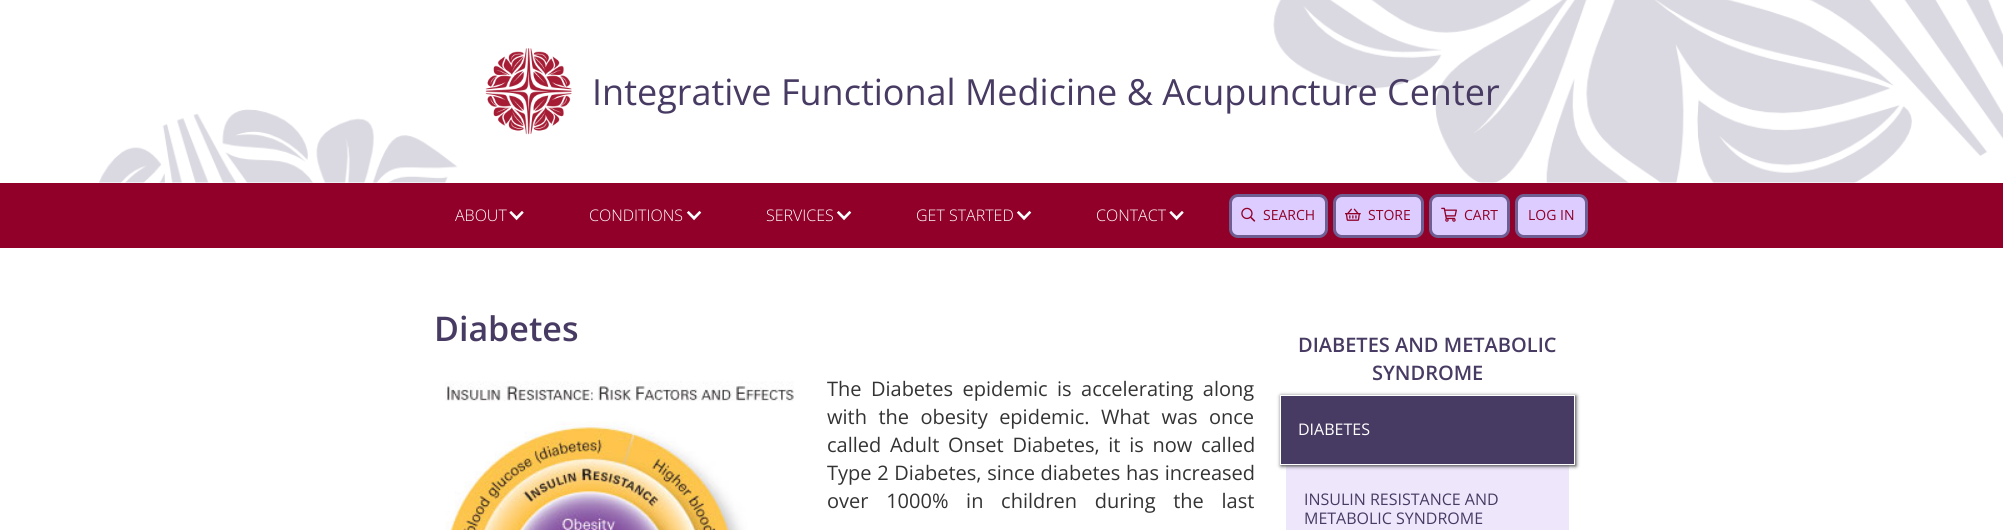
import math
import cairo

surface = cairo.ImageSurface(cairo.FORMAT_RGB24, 2003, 530)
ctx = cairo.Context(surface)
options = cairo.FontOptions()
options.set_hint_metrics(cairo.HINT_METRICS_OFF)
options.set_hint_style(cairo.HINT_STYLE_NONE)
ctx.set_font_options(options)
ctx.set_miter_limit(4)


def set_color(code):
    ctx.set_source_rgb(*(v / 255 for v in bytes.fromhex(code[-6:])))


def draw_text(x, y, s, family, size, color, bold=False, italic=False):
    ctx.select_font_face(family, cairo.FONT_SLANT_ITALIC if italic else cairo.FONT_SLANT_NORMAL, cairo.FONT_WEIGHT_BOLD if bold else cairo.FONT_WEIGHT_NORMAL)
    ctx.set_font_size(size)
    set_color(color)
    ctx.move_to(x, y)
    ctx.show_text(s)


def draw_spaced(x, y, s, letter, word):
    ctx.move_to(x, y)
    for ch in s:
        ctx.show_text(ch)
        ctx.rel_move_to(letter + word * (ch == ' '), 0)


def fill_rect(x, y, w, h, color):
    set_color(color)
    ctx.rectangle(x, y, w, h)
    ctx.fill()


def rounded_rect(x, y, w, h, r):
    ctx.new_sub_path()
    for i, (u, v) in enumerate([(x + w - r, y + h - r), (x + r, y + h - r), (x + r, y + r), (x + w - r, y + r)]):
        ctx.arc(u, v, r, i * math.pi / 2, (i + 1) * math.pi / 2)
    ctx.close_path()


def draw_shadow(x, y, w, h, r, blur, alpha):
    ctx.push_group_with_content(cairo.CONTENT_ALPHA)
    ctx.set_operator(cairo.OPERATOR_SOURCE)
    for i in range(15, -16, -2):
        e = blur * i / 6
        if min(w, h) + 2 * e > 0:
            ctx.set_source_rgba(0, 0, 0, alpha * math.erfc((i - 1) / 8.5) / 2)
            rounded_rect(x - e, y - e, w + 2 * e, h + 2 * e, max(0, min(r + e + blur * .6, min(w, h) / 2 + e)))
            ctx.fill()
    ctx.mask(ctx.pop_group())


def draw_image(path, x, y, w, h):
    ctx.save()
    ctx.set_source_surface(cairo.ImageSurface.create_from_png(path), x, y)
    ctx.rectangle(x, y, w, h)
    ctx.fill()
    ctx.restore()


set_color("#ffffff")
ctx.paint()
draw_image("assets/img1.png", 99, 0, 1904, 183)
draw_image("assets/img2.png", 485, 48, 87, 87)
draw_text(592, 105, "Integrative Functional Medicine & Acupuncture Center", "Open Sans", 36, "#483b63")
fill_rect(0, 183, 2003, 65, "#900028")
draw_text(455, 221, "ABOUT", "Open Sans Light", 16, "#ffffff")
draw_image("assets/img3.png", 509, 211, 15, 10)
draw_text(589, 221, "CONDITIONS", "Open Sans Light", 16, "#ffffff")
draw_image("assets/img4.png", 686, 211, 16, 10)
draw_text(766, 221, "SERVICES", "Open Sans Light", 16, "#ffffff")
draw_image("assets/img4.png", 836, 211, 16, 10)
draw_text(916, 221, "GET STARTED", "Open Sans Light", 16, "#ffffff")
draw_image("assets/img4.png", 1016, 211, 16, 10)
draw_text(1096, 221, "CONTACT", "Open Sans Light", 16, "#ffffff")
draw_image("assets/img3.png", 1169, 211, 15, 10)
set_color("#ddccff")
rounded_rect(1230.5, 195.5, 96, 41, 7.5)
ctx.fill_preserve()
set_color("#6f5e91")
ctx.set_line_width(3)
ctx.stroke()
draw_image("assets/img5.png", 1241, 207, 15, 15)
draw_text(1263, 220, "SEARCH", "Open Sans", 14, "#900028")
set_color("#ddccff")
rounded_rect(1334.5, 195.5, 88, 41, 7.5)
ctx.fill_preserve()
set_color("#6f5e91")
ctx.stroke()
draw_image("assets/img6.png", 1345, 208, 16, 13)
draw_text(1368, 220, "STORE", "Open Sans", 14, "#900028")
set_color("#ddccff")
rounded_rect(1430.5, 195.5, 78, 41, 7.5)
ctx.fill_preserve()
set_color("#6f5e91")
ctx.stroke()
draw_image("assets/img7.png", 1441, 207, 16, 15)
draw_text(1464, 220, "CART", "Open Sans", 14, "#900028")
set_color("#ddccff")
rounded_rect(1516.5, 195.5, 70, 41, 7.5)
ctx.fill_preserve()
set_color("#6f5e91")
ctx.stroke()
draw_text(1528, 220, "LOG IN", "Open Sans", 14, "#900028")
draw_text(434, 341, "Diabetes", "Open Sans SemiBold", 34, "#483b63")
draw_image("assets/img8.png", 445, 381, 349, 149)
ctx.select_font_face("Open Sans")
ctx.set_font_size(20)
set_color("#333333")
draw_spaced(827, 396, "The Diabetes epidemic is accelerating along", 0, 4.25)
draw_spaced(827, 424, "with the obesity epidemic. What was once", 0, 6.25)
draw_spaced(827, 452, "called Adult Onset Diabetes, it is now called", 0, 3.5)
draw_spaced(827, 480, "Type 2 Diabetes, since diabetes has increased", 0, 0.5)
draw_spaced(827, 508, "over 1000% in children during the last", 0, 12.5)
draw_text(1298, 352, "DIABETES AND METABOLIC", "Open Sans SemiBold", 20, "#483b63")
draw_text(1372, 380, "SYNDROME", "Open Sans SemiBold", 20, "#483b63")
fill_rect(1286, 465, 283, 65, "#eee7fc")
set_color("#333333")
draw_shadow(1281, 396, 295, 70, 0, 2, 1)
set_color("#483b63")
ctx.rectangle(1280.5, 395.5, 294, 69)
ctx.fill_preserve()
set_color("#ffffff")
ctx.set_line_width(1)
ctx.stroke()
draw_text(1298, 435, "DIABETES", "Open Sans", 16, "#ffffff")
draw_text(1304, 505, "INSULIN RESISTANCE AND", "Open Sans", 16, "#483b63")
draw_text(1304, 524, "METABOLIC SYNDROME", "Open Sans", 16, "#483b63")
surface.write_to_png("output.png")
